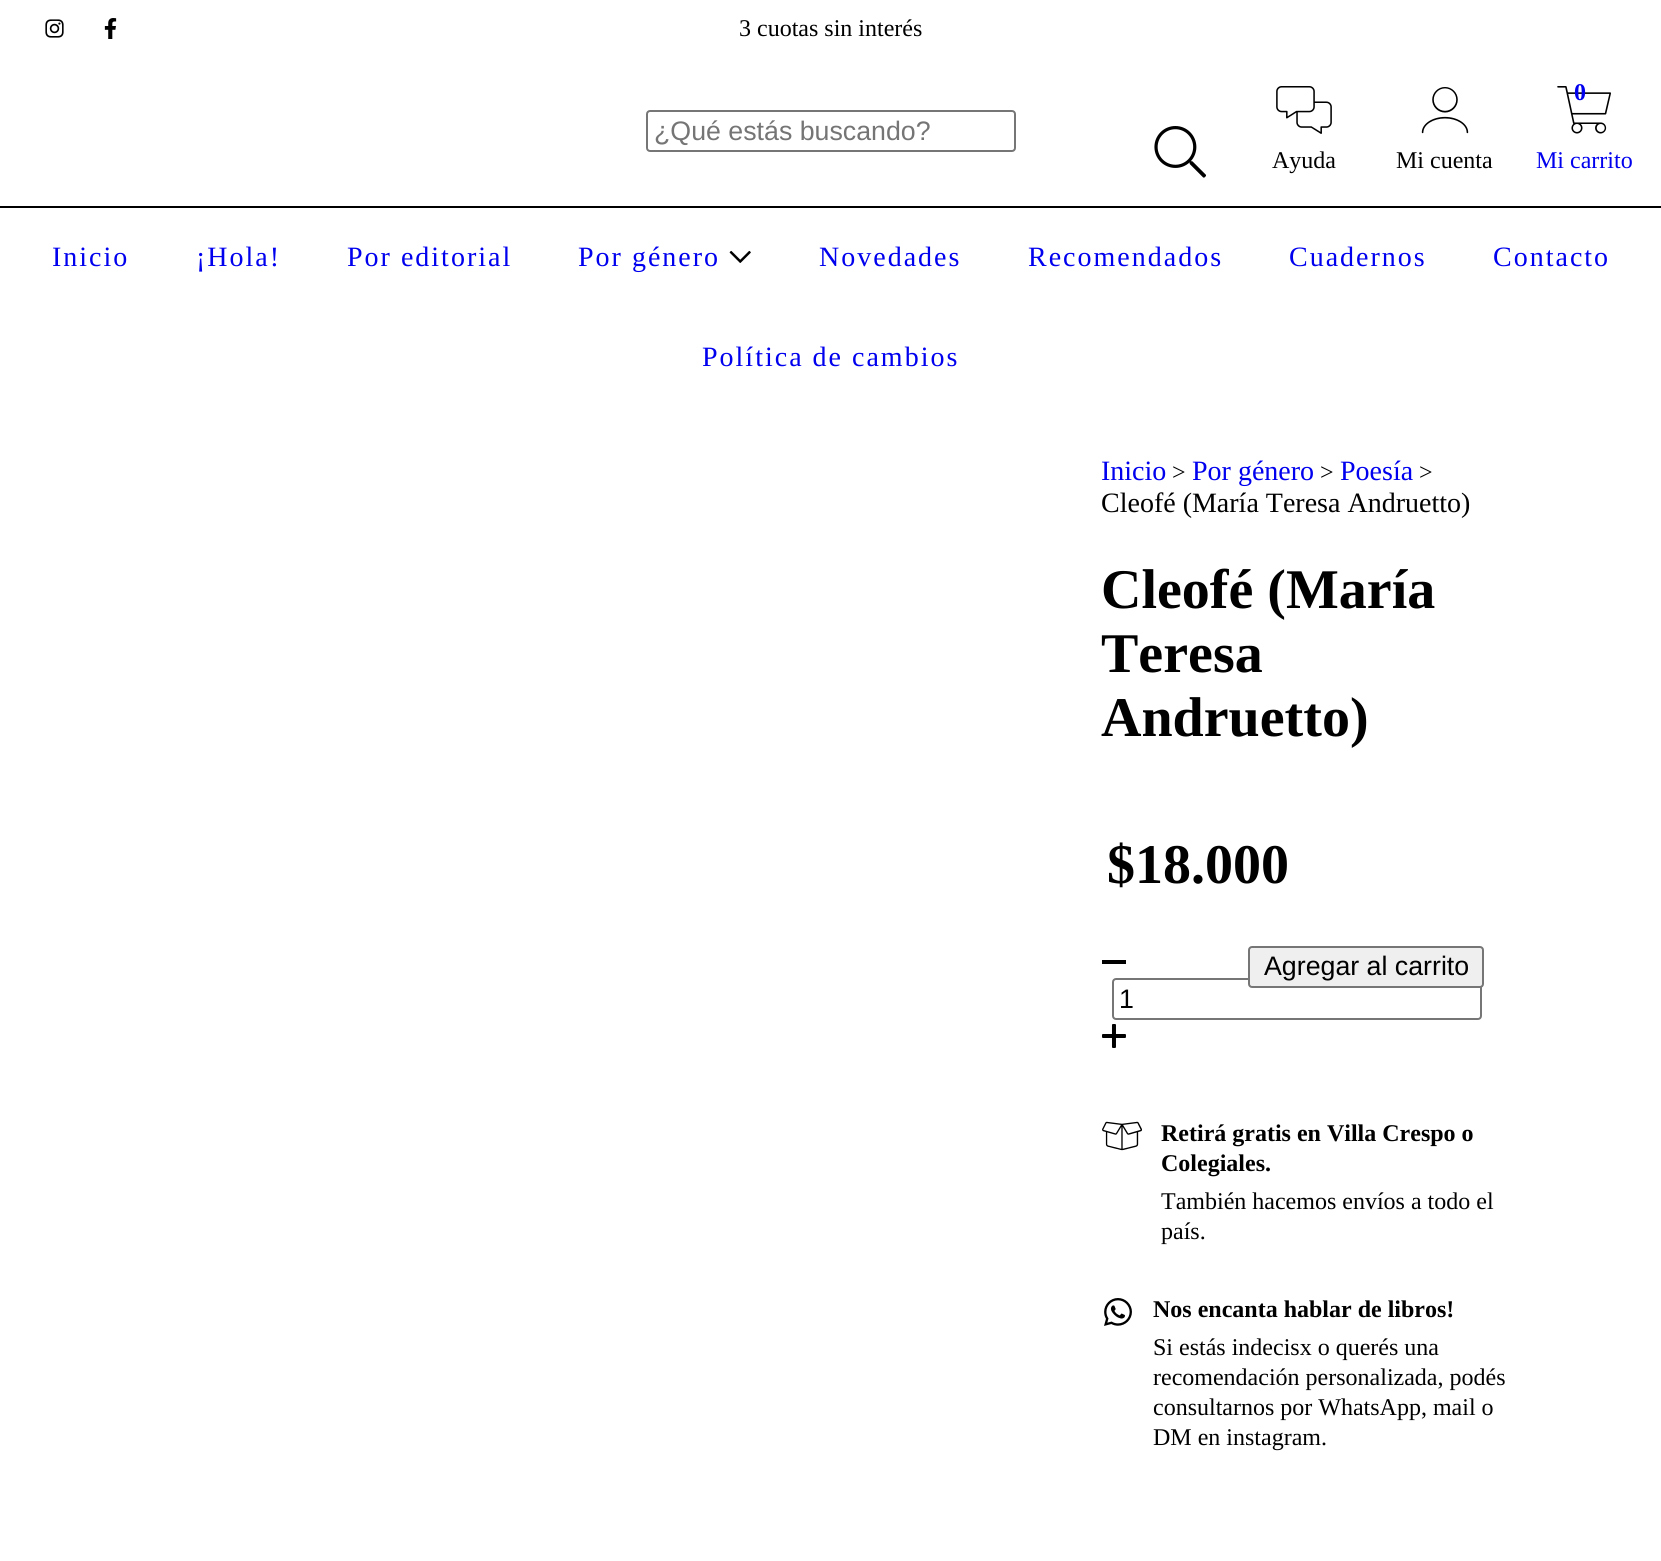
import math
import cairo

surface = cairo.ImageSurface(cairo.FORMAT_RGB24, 1661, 1561)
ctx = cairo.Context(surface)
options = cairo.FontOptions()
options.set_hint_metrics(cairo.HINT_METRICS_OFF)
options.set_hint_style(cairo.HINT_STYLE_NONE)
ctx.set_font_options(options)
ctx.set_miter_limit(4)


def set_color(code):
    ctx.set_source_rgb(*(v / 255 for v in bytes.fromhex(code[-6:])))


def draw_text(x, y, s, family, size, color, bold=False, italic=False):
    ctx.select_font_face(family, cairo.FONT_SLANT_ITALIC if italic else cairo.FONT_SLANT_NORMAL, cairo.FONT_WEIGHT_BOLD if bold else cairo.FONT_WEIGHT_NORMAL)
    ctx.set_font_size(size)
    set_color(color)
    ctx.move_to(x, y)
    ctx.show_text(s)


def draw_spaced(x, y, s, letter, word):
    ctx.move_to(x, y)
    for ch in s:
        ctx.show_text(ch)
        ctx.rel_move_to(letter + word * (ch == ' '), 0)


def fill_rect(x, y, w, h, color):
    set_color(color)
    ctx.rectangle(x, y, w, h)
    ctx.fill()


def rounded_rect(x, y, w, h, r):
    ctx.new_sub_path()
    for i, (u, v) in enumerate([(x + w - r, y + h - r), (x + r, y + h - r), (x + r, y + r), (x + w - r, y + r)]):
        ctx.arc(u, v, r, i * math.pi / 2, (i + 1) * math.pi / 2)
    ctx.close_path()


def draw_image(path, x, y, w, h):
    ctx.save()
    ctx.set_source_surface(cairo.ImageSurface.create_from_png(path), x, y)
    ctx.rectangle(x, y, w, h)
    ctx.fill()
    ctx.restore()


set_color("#ffffff")
ctx.paint()
draw_image("assets/img1.png", 45, 19, 19, 19)
draw_image("assets/img2.png", 104, 18, 13, 21)
draw_text(739, 36, "3 cuotas sin interés", "Liberation Serif", 24, "#000000")
rounded_rect(647, 111, 368, 40, 3)
set_color("#767676")
ctx.stroke()
draw_text(654, 140, "¿Qué estás buscando?", "Liberation Sans", 26.75, "#757575")
draw_image("assets/img3.png", 1154, 126, 52, 52)
draw_image("assets/img4.png", 1276, 86, 56, 48)
draw_text(1272, 168, "Ayuda", "Liberation Serif", 24, "#000000")
draw_image("assets/img5.png", 1421, 87, 48, 47)
draw_text(1396, 168, "Mi cuenta", "Liberation Serif", 24, "#000000")
draw_image("assets/img6.png", 1557, 86, 54, 48)
draw_text(1574, 100, "0", "Liberation Serif", 24, "#0000ee", bold=True)
draw_text(1536, 168, "Mi carrito", "Liberation Serif", 24, "#0000ee")
fill_rect(0, 206, 1661, 2, "#000000")
ctx.set_font_size(28)
set_color("#0000ee")
draw_spaced(52, 266, "Inicio", 2, 0)
draw_spaced(196, 266, "¡Hola!", 2, 0)
draw_spaced(347, 266, "Por editorial", 2, 0)
draw_spaced(578, 266, "Por género", 2, 0)
draw_image("assets/img7.png", 729, 250, 22, 13)
draw_spaced(819, 266, "Novedades", 2, 0)
draw_spaced(1028, 266, "Recomendados", 2, 0)
draw_spaced(1289, 266, "Cuadernos", 2, 0)
draw_spaced(1493, 266, "Contacto", 2, 0)
draw_spaced(702, 366, "Política de cambios", 2, 0)
draw_text(1101, 480, "Inicio", "Liberation Serif", 28, "#0000ee")
draw_text(1172, 480, ">", "Liberation Serif", 24, "#000000")
draw_text(1192, 480, "Por género", "Liberation Serif", 28, "#0000ee")
draw_text(1320, 480, ">", "Liberation Serif", 24, "#000000")
draw_text(1340, 480, "Poesía", "Liberation Serif", 28, "#0000ee")
draw_text(1419, 480, ">", "Liberation Serif", 24, "#000000")
draw_text(1101, 512, "Cleofé (María Teresa Andruetto)", "Liberation Serif", 28, "#000000")
draw_text(1101, 608, "Cleofé (María", "Liberation Serif", 56, "#000000", bold=True)
draw_text(1101, 672, "Teresa", "Liberation Serif", 56, "#000000", bold=True)
draw_text(1101, 736, "Andruetto)", "Liberation Serif", 56, "#000000", bold=True)
draw_text(1107, 883, "$18.000", "Liberation Serif", 56, "#000000", bold=True)
rounded_rect(1113, 979, 368, 40, 3)
set_color("#767676")
ctx.stroke()
set_color("#efefef")
rounded_rect(1249, 947, 234, 40, 3)
ctx.fill_preserve()
set_color("#767676")
ctx.stroke()
draw_text(1264, 975, "Agregar al carrito", "Liberation Sans", 26.75, "#000000")
fill_rect(1102, 960, 24, 4, "#000000")
draw_text(1119, 1008, "1", "Liberation Sans", 26.75, "#000000")
draw_image("assets/img8.png", 1102, 1024, 24, 24)
draw_image("assets/img9.png", 1102, 1121, 40, 30)
draw_text(1161, 1141, "Retirá gratis en Villa Crespo o", "Liberation Serif", 24, "#000000", bold=True)
draw_text(1161, 1171, "Colegiales.", "Liberation Serif", 24, "#000000", bold=True)
draw_text(1161, 1209, "También hacemos envíos a todo el", "Liberation Serif", 24, "#000000")
draw_text(1161, 1239, "país.", "Liberation Serif", 24, "#000000")
draw_image("assets/img10.png", 1104, 1298, 28, 28)
draw_text(1153, 1317, "Nos encanta hablar de libros!", "Liberation Serif", 24, "#000000", bold=True)
draw_text(1153, 1355, "Si estás indecisx o querés una", "Liberation Serif", 24, "#000000")
draw_text(1153, 1385, "recomendación personalizada, podés", "Liberation Serif", 24, "#000000")
draw_text(1153, 1415, "consultarnos por WhatsApp, mail o", "Liberation Serif", 24, "#000000")
draw_text(1153, 1445, "DM en instagram.", "Liberation Serif", 24, "#000000")
surface.write_to_png("output.png")
